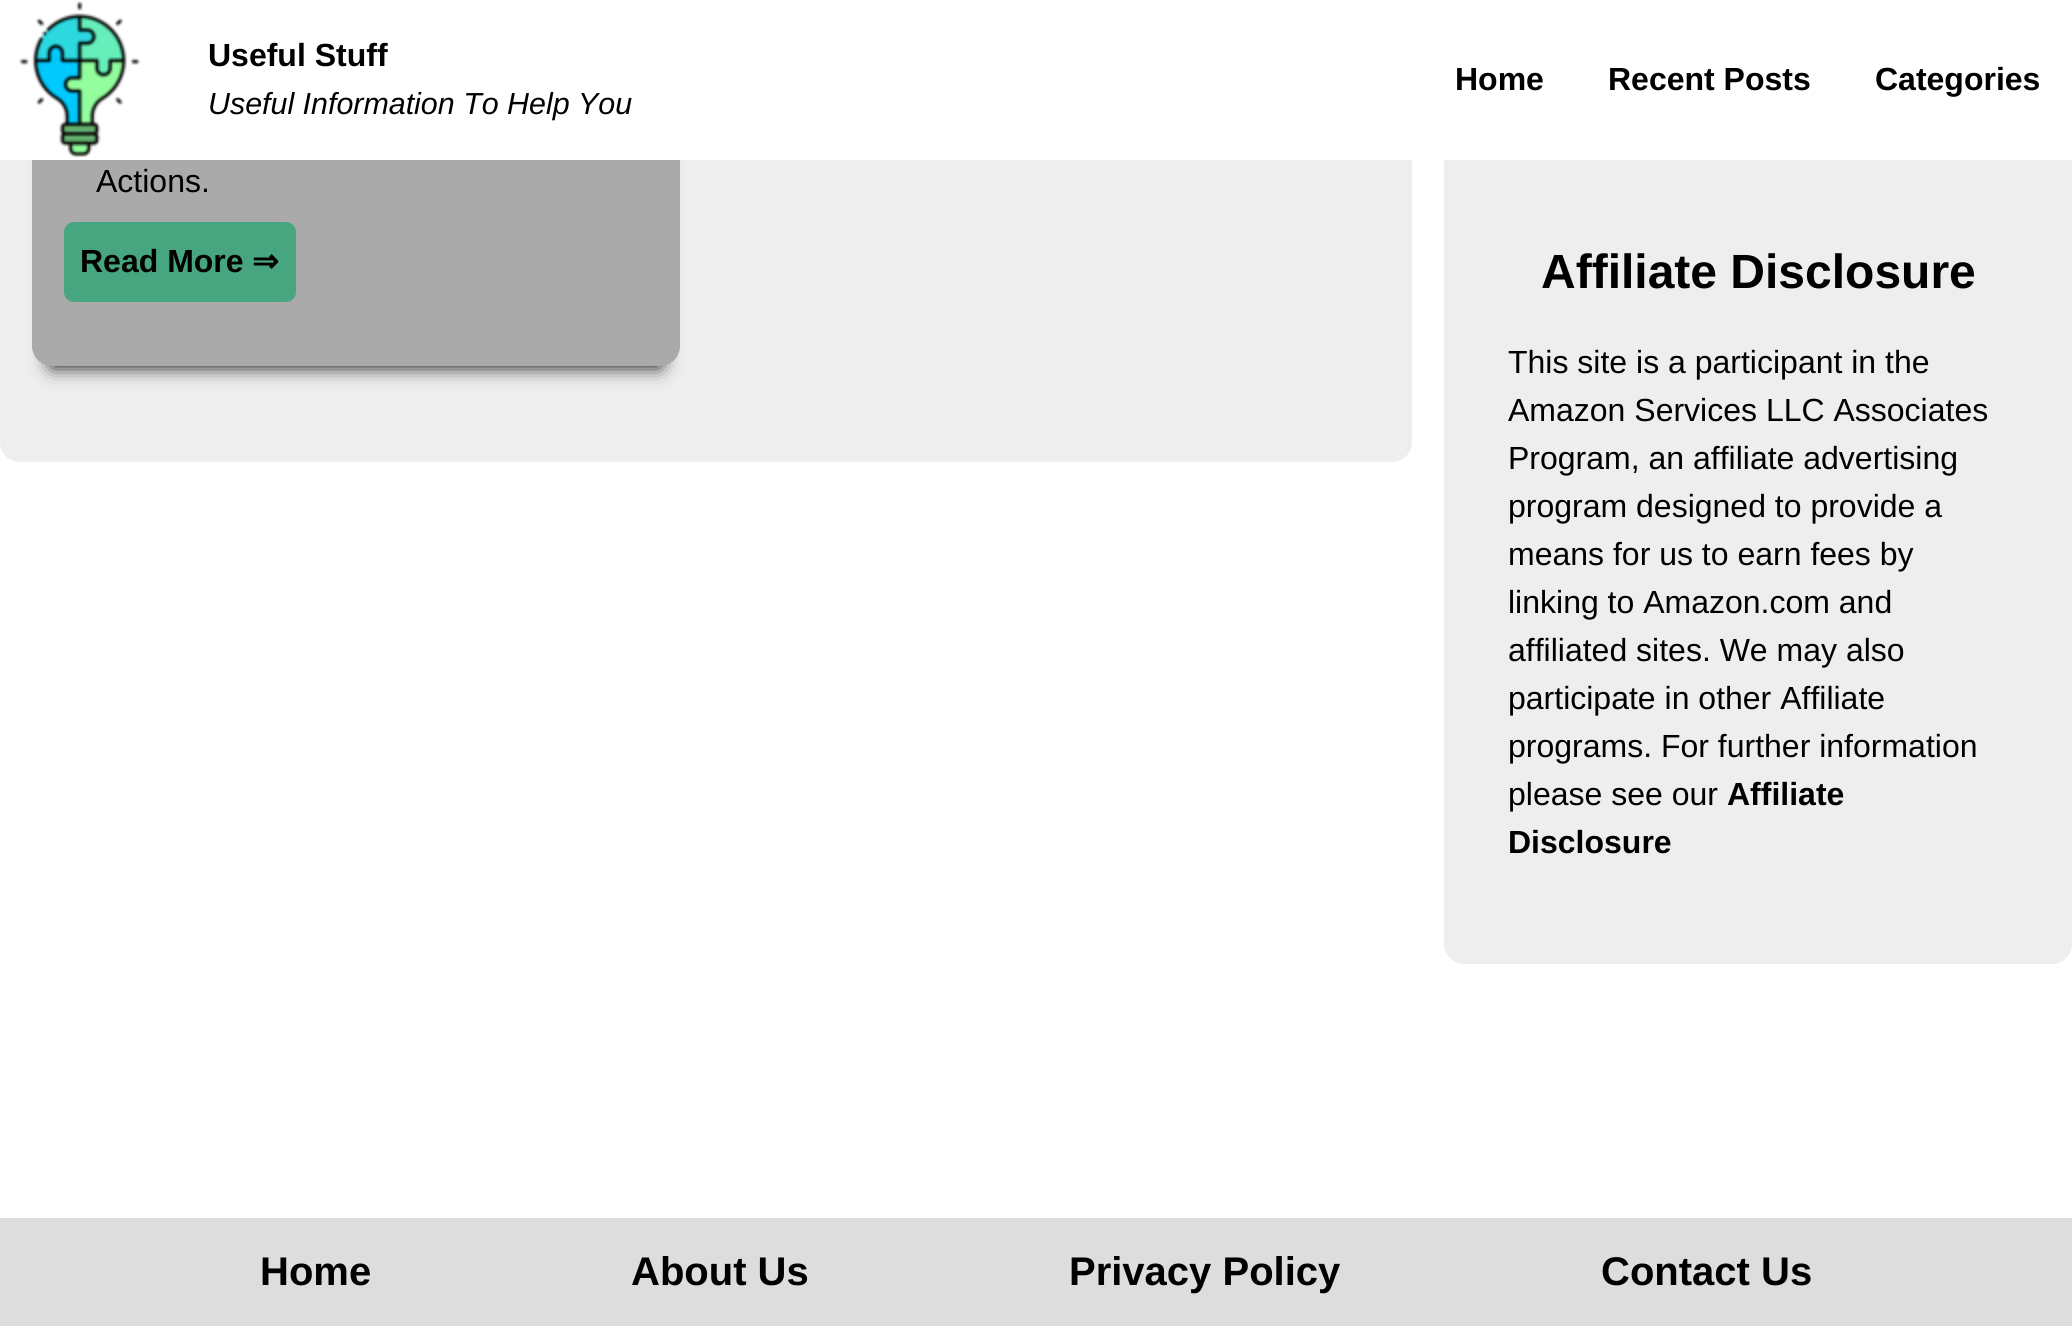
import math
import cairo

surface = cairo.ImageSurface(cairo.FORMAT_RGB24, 2072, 1326)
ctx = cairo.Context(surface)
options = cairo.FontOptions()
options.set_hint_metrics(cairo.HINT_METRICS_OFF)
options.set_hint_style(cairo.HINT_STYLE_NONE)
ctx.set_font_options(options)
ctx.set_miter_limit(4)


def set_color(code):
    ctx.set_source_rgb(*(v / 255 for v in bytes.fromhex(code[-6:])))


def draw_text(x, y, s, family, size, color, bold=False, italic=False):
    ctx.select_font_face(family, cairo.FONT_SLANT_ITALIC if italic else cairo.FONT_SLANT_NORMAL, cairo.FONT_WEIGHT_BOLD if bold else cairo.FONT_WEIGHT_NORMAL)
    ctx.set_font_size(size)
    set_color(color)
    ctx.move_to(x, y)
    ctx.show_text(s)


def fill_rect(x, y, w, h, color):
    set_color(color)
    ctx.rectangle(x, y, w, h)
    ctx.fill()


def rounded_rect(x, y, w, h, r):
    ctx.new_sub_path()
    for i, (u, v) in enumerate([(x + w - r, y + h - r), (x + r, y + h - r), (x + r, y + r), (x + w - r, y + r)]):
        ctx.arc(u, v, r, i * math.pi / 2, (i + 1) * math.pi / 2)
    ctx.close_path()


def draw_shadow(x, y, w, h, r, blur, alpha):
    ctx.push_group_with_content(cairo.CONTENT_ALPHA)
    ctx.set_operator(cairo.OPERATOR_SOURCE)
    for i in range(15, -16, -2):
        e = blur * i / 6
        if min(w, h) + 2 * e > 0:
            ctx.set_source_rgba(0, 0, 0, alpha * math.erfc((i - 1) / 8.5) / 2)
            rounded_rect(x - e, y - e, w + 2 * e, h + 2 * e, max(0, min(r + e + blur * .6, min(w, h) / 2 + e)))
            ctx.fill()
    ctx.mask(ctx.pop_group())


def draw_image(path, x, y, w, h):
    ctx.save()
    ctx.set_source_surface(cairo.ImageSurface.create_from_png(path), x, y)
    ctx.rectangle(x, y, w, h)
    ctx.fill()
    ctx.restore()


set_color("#ffffff")
ctx.paint()
set_color("#eeeeee")
rounded_rect(0, -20, 1412, 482, 20)
ctx.fill()
set_color("#000000")
draw_shadow(52, -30, 608, 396, 0, 10, 1)
set_color("#aaaaaa")
rounded_rect(32, -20, 648, 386, 20)
ctx.fill()
set_color("#eeeeee")
rounded_rect(1444, -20, 628, 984, 20)
ctx.fill()
fill_rect(0, 0, 2072, 160, "#ffffff")
draw_image("assets/img1.png", 19, 1, 122, 157)
draw_text(208, 66, "Useful Stuff", "Liberation Sans", 32, "#000000", bold=True)
draw_text(208, 114, "Useful Information To Help You", "Liberation Sans", 30.4, "#000000", italic=True)
draw_text(1455, 90, "Home", "Liberation Sans", 32, "#000000", bold=True)
draw_text(1608, 90, "Recent Posts", "Liberation Sans", 32, "#000000", bold=True)
draw_text(1875, 90, "Categories", "Liberation Sans", 32, "#000000", bold=True)
draw_text(96, 192, "Actions.", "Liberation Sans", 32, "#000000")
set_color("#47a57f")
rounded_rect(64, 222, 232, 80, 10)
ctx.fill()
draw_text(80, 272, "Read More", "Liberation Sans", 32, "#000000", bold=True)
draw_text(252, 272, "⇒", "DejaVu Sans", 32, "#000000", bold=True)
draw_text(1541, 288, "Affiliate Disclosure", "Liberation Sans", 48, "#000000", bold=True)
draw_text(1508, 373, "This site is a participant in the", "Liberation Sans", 32, "#000000")
draw_text(1508, 421, "Amazon Services LLC Associates", "Liberation Sans", 32, "#000000")
draw_text(1508, 469, "Program, an affiliate advertising", "Liberation Sans", 32, "#000000")
draw_text(1508, 517, "program designed to provide a", "Liberation Sans", 32, "#000000")
draw_text(1508, 565, "means for us to earn fees by", "Liberation Sans", 32, "#000000")
draw_text(1508, 613, "linking to Amazon.com and", "Liberation Sans", 32, "#000000")
draw_text(1508, 661, "affiliated sites. We may also", "Liberation Sans", 32, "#000000")
draw_text(1508, 709, "participate in other Affiliate", "Liberation Sans", 32, "#000000")
draw_text(1508, 757, "programs. For further information", "Liberation Sans", 32, "#000000")
draw_text(1508, 805, "please see our", "Liberation Sans", 32, "#000000")
draw_text(1727, 805, "Affiliate", "Liberation Sans", 32, "#000000", bold=True)
draw_text(1508, 853, "Disclosure", "Liberation Sans", 32, "#000000", bold=True)
fill_rect(0, 1218, 2072, 108, "#dddddd")
draw_text(260, 1285, "Home", "Liberation Sans", 40, "#000000", bold=True)
draw_text(631, 1285, "About Us", "Liberation Sans", 40, "#000000", bold=True)
draw_text(1069, 1285, "Privacy Policy", "Liberation Sans", 40, "#000000", bold=True)
draw_text(1601, 1285, "Contact Us", "Liberation Sans", 40, "#000000", bold=True)
surface.write_to_png("output.png")
